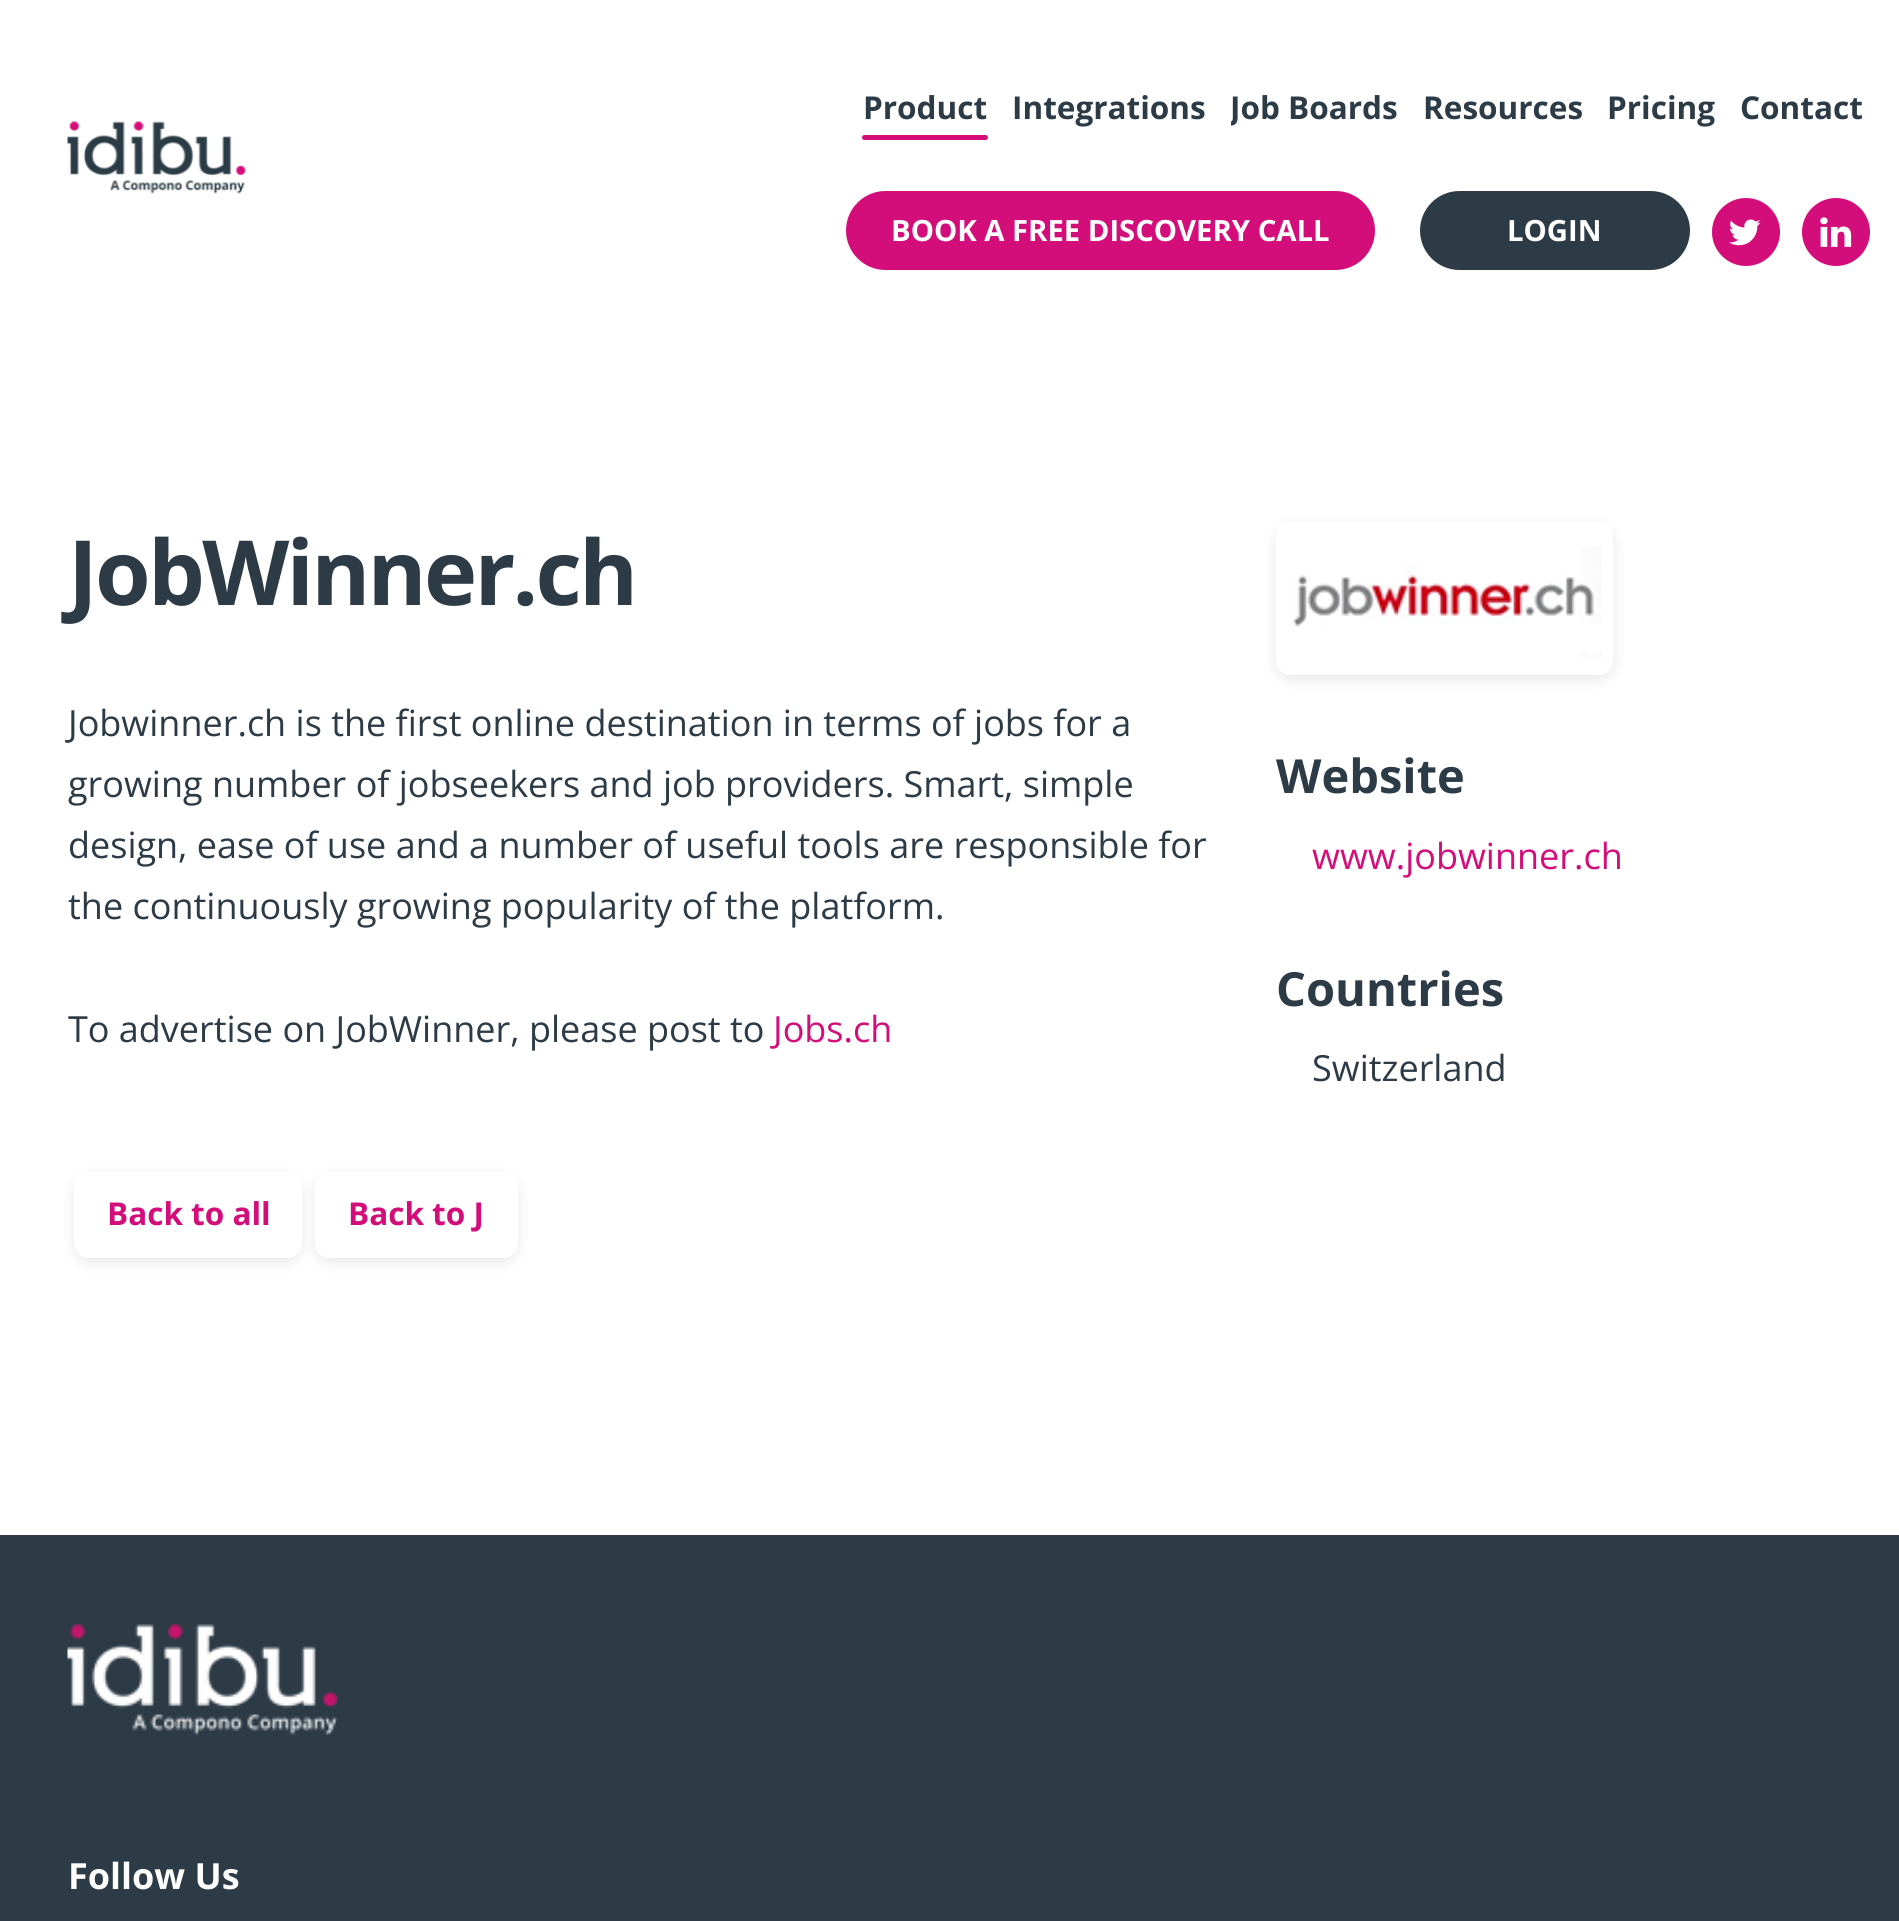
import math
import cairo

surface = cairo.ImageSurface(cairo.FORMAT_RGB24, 1899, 1921)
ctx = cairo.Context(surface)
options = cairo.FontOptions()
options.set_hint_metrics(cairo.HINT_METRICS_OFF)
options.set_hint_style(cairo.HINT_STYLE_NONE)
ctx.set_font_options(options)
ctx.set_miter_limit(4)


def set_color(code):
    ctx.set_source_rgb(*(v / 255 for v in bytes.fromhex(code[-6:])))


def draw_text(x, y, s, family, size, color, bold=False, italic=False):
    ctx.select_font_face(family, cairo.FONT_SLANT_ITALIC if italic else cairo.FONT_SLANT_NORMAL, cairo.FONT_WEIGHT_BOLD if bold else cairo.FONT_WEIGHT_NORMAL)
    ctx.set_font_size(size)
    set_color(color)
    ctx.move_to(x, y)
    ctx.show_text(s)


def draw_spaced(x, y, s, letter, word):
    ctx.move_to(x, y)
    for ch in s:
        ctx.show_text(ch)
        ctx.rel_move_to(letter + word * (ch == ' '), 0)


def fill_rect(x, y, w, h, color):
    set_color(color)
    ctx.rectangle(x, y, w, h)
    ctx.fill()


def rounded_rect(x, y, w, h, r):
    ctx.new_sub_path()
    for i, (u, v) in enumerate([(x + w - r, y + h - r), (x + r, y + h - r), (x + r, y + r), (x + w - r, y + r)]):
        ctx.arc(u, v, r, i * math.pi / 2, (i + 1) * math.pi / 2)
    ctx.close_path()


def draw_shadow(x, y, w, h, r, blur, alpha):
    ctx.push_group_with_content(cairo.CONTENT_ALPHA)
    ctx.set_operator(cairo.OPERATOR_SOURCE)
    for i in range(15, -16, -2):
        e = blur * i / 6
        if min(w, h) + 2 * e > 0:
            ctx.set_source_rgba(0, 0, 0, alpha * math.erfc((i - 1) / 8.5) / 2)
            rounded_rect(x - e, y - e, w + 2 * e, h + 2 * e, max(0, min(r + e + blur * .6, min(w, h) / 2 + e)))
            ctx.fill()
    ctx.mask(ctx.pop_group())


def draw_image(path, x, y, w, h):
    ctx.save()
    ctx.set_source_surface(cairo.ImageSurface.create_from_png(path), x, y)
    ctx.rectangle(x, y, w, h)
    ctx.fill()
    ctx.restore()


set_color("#ffffff")
ctx.paint()
draw_image("assets/img1.png", 67, 121, 179, 73)
draw_text(863, 119, "Product", "Open Sans", 31.5, "#2c3b46", bold=True)
set_color("#d30e7a")
rounded_rect(862, 135, 126, 5, 2.5)
ctx.fill()
draw_text(1012, 119, "Integrations", "Open Sans", 31.5, "#2c3b46", bold=True)
ctx.save()
ctx.rectangle(1231, 45, 166, 128)
ctx.clip()
draw_text(1230, 119, "Job Boards", "Open Sans", 31.5, "#2c3b46", bold=True)
ctx.restore()
draw_text(1423, 119, "Resources", "Open Sans", 31.5, "#2c3b46", bold=True)
draw_text(1607, 119, "Pricing", "Open Sans", 31.5, "#2c3b46", bold=True)
draw_text(1740, 119, "Contact", "Open Sans", 31.5, "#2c3b46", bold=True)
set_color("#d30e7a")
rounded_rect(846, 191, 529, 79, 39.5)
ctx.fill()
draw_text(891, 241, "BOOK A FREE DISCOVERY CALL", "Open Sans", 29.25, "#ffffff", bold=True)
set_color("#2c3b46")
rounded_rect(1422.5, 193.5, 265, 74, 37)
ctx.fill_preserve()
ctx.set_line_width(5)
ctx.stroke()
draw_text(1507, 241, "LOGIN", "Open Sans", 29.25, "#ffffff", bold=True)
set_color("#d30e7a")
ctx.new_path()
ctx.arc(1746, 232, 34, 0, 2 * math.pi)
ctx.fill()
draw_image("assets/img2.png", 1729, 219, 32, 27)
ctx.arc(1836, 232, 34, 0, 2 * math.pi)
ctx.fill()
draw_image("assets/img3.png", 1820, 217, 32, 30)
ctx.set_font_size(90)
set_color("#2c3b46")
draw_spaced(68, 605, "JobWinner.ch", -2.75, 0)
draw_text(68, 736, "Jobwinner.ch is the first online destination in terms of jobs for a", "Open Sans", 36, "#2c3b46")
draw_text(68, 797, "growing number of jobseekers and job providers. Smart, simple", "Open Sans", 36, "#2c3b46")
draw_text(68, 858, "design, ease of use and a number of useful tools are responsible for", "Open Sans", 36, "#2c3b46")
draw_text(68, 919, "the continuously growing popularity of the platform.", "Open Sans", 36, "#2c3b46")
draw_text(68, 1042, "To advertise on JobWinner, please post to", "Open Sans", 36, "#2c3b46")
draw_text(773, 1042, "Jobs.ch", "Open Sans", 36, "#d30e7a")
set_color("#000000")
draw_shadow(1280, 531, 329, 144, 9, 9, 0.15)
set_color("#ffffff")
rounded_rect(1276, 522, 337, 153, 14)
ctx.fill()
draw_image("assets/img4.png", 1293, 546, 309, 113)
draw_text(1276, 793, "Website", "Open Sans", 47, "#2c3b46", bold=True)
draw_text(1312, 869, "www.jobwinner.ch", "Open Sans", 36, "#d30e7a")
draw_text(1276, 1006, "Countries", "Open Sans", 47, "#2c3b46", bold=True)
draw_text(1312, 1081, "Switzerland", "Open Sans", 36, "#2c3b46")
set_color("#000000")
draw_shadow(79, 1181, 218, 77, 9, 9, 0.15)
set_color("#ffffff")
rounded_rect(74, 1172, 228, 86, 14)
ctx.fill()
draw_text(107, 1225, "Back to all", "Open Sans", 31.5, "#d30e7a", bold=True)
set_color("#000000")
draw_shadow(320, 1181, 193, 77, 9, 9, 0.15)
set_color("#ffffff")
rounded_rect(315, 1172, 203, 86, 14)
ctx.fill()
draw_text(348, 1225, "Back to J", "Open Sans", 31.5, "#d30e7a", bold=True)
fill_rect(0, 1535, 1899, 386, "#2c3b46")
draw_image("assets/img5.png", 67, 1624, 271, 111)
draw_text(68, 1889, "Follow Us", "Open Sans", 36, "#ffffff", bold=True)
surface.write_to_png("output.png")
